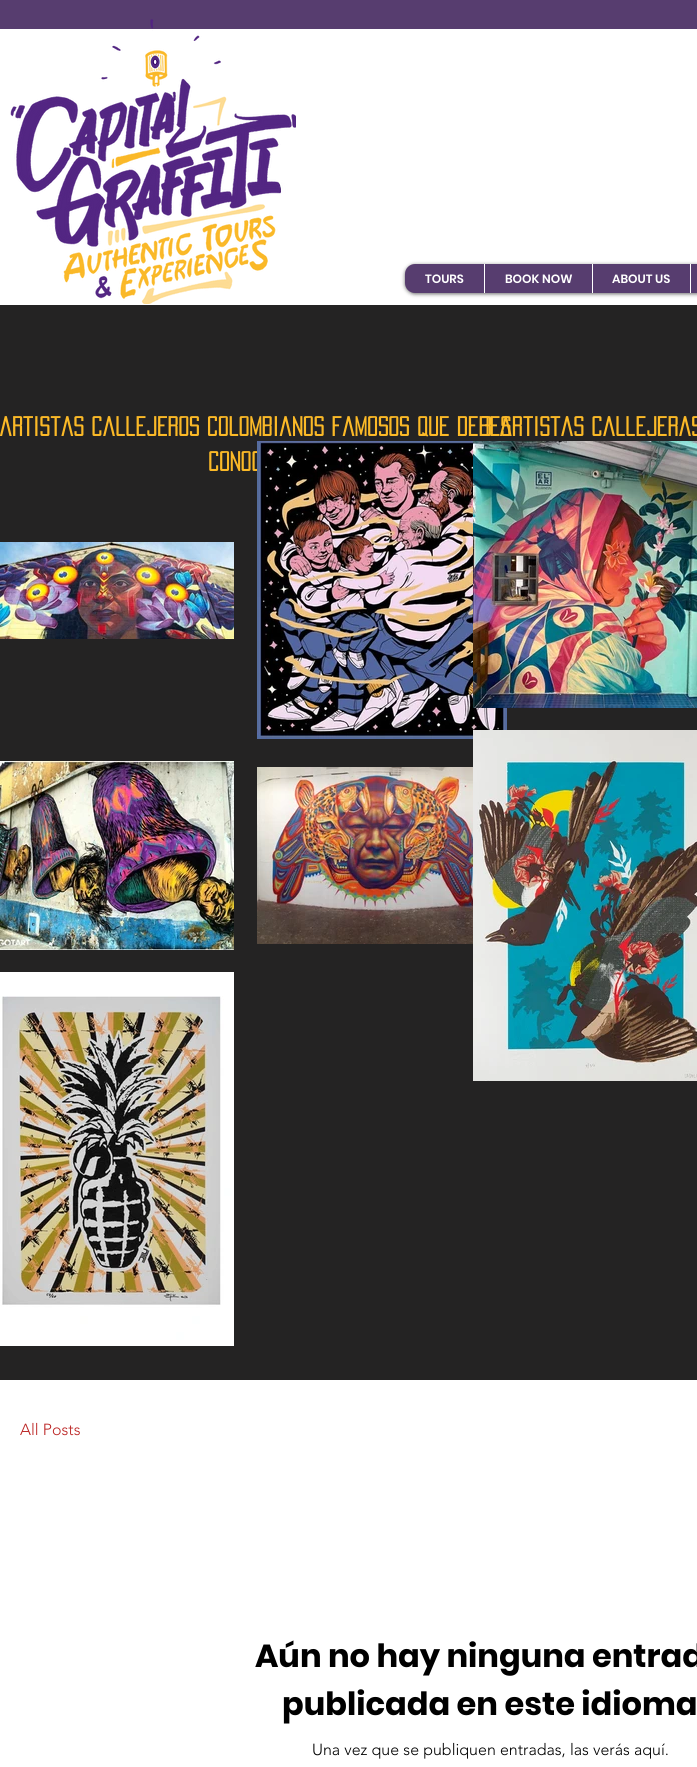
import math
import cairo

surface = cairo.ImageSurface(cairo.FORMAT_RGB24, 697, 1767)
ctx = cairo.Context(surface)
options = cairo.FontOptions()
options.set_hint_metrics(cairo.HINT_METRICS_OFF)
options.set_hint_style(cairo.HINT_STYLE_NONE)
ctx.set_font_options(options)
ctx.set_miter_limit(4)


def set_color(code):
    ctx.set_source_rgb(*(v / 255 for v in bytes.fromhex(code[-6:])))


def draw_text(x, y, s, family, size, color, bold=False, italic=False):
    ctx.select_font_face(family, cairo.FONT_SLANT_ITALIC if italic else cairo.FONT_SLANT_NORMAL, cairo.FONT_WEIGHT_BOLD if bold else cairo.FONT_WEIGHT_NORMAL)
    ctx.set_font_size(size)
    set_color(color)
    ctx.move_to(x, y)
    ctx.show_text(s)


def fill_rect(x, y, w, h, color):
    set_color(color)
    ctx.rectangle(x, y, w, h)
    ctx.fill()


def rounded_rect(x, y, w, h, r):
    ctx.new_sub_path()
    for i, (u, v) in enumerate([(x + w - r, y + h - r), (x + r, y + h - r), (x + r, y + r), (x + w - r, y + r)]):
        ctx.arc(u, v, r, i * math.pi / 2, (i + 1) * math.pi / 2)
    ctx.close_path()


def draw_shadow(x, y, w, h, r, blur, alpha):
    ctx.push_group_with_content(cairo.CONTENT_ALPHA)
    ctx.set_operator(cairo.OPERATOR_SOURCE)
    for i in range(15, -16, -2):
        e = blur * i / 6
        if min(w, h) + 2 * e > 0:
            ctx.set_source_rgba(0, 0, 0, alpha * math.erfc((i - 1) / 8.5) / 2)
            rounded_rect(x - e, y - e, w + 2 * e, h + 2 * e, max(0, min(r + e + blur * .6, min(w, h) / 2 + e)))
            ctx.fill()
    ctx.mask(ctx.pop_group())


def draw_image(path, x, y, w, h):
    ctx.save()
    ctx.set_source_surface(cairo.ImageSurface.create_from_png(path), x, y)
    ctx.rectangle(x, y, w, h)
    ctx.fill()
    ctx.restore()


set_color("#ffffff")
ctx.paint()
fill_rect(0, 0, 697, 29, "#573d6f")
draw_image("assets/img1.png", 10, 19, 286, 285)
set_color("#000000")
draw_shadow(405, 265, 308, 29, 10, 2, 0.6)
set_color("#573d6f")
rounded_rect(405, 264, 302, 29, 10)
ctx.fill()
draw_text(425, 283, "TOURS", "Poppins SemiBold", 12, "#ffffff")
fill_rect(484, 264, 1, 29, "#ffffff")
draw_text(505, 283, "BOOK NOW", "Poppins SemiBold", 12, "#ffffff")
fill_rect(592, 264, 1, 29, "#ffffff")
draw_text(612, 283, "ABOUT US", "Poppins SemiBold", 12, "#ffffff")
fill_rect(690, 264, 1, 29, "#ffffff")
fill_rect(0, 305, 697, 1075, "#242323")
draw_text(-1, 436, "artistas callejeros colombianos famosos que debes", "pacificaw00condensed", 24, "#fbb927", bold=True)
draw_text(208, 471, "conoc", "pacificaw00condensed", 24, "#fbb927", bold=True)
draw_text(481, 436, "3 artistas callejeras", "pacificaw00condensed", 24, "#fbb927", bold=True)
draw_image("assets/img2.png", 0, 542, 234, 97)
draw_image("assets/img3.png", 257, 441, 250, 298)
draw_image("assets/img4.png", 0, 761, 234, 189)
draw_image("assets/img5.png", 257, 767, 216, 177)
draw_image("assets/img6.png", 0, 972, 234, 374)
draw_image("assets/img7.png", 473, 441, 224, 267)
draw_image("assets/img8.png", 473, 730, 224, 351)
draw_text(20, 1435, "All Posts", "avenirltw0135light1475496 Light", 16, "#bb2423")
draw_text(255, 1667, "Aún no hay ninguna entrad", "Poppins", 32, "#000000", bold=True)
draw_text(282, 1715, "publicada en este idioma", "Poppins", 32, "#000000", bold=True)
draw_text(312, 1755, "Una vez que se publiquen entradas, las verás aquí.", "avenirltw0135light1475496 Light", 16, "#000000")
surface.write_to_png("output.png")
